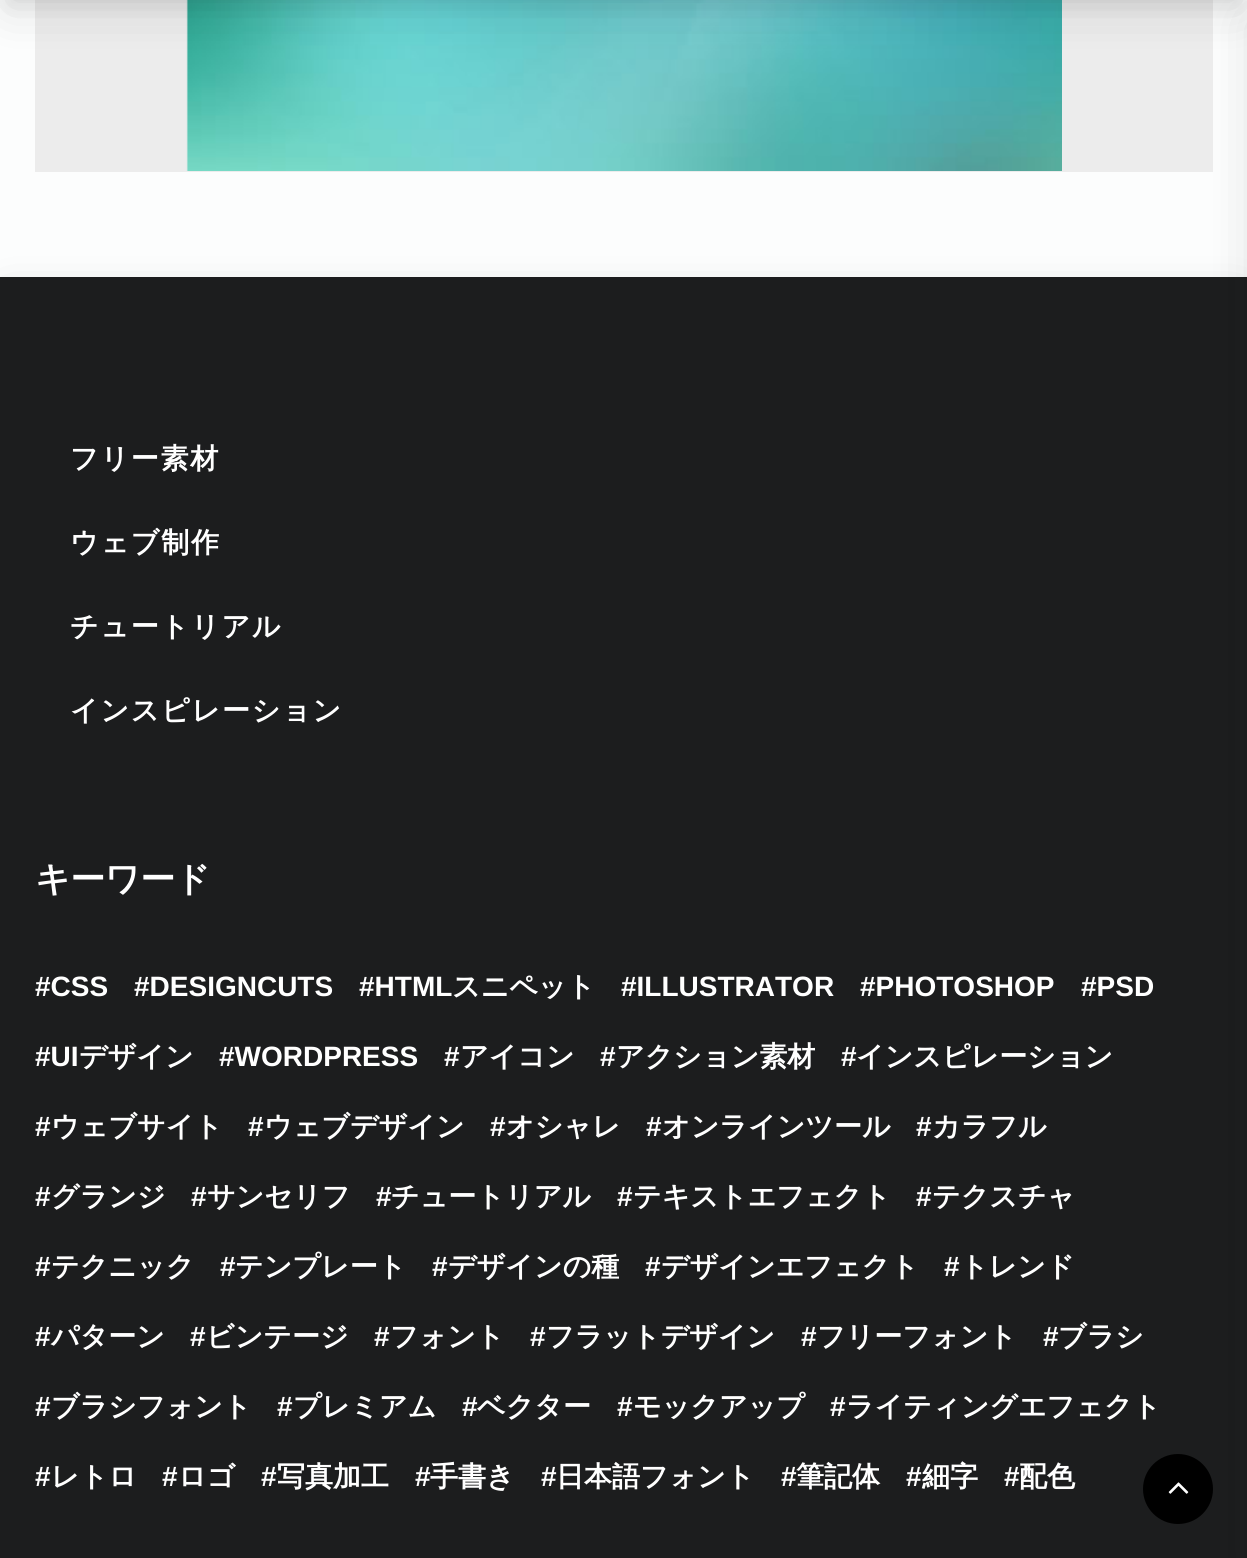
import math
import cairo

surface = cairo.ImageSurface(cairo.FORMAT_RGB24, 1247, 1558)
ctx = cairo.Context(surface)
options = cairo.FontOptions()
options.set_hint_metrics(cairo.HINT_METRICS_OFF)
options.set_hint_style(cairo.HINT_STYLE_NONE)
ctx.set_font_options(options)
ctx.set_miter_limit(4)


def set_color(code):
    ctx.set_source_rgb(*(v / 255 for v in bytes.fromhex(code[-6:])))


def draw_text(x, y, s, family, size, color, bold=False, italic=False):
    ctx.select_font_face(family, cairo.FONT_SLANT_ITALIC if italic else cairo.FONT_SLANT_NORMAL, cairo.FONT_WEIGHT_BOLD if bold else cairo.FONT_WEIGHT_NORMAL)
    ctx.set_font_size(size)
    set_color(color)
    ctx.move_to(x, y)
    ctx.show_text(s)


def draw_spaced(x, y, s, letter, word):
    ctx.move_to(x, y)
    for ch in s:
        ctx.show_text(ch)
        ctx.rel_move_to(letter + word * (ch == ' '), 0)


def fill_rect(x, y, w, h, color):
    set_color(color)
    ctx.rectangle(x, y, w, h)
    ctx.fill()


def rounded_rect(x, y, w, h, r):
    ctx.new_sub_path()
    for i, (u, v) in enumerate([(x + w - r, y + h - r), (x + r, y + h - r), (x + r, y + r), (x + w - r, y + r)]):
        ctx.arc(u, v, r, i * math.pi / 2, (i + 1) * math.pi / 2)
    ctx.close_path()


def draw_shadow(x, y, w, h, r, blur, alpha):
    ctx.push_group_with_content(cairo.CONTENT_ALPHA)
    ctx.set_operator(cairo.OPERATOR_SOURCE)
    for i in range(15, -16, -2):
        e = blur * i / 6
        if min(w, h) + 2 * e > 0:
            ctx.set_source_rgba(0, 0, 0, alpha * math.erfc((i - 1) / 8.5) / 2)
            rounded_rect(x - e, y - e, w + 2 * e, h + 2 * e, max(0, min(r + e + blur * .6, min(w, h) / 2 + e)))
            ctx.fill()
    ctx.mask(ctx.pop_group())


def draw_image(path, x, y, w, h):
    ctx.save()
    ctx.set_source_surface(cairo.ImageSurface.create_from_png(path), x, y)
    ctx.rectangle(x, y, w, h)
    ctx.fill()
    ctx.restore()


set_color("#fcfdfd")
ctx.paint()
fill_rect(35, 0, 1178, 172, "#ececec")
draw_image("assets/img1.png", 186, 0, 876, 171)
set_color("#141414")
draw_shadow(9, -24, 1230, 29, 0, 8, 0.06)
draw_shadow(7, -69, 1234, 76, 0, 23, 0.15)
draw_shadow(7, 298, 1234, 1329, 0, 23, 0.15)
fill_rect(0, 277, 1247, 1281, "#1c1d1e")
ctx.select_font_face("WenQuanYi Zen Hei", cairo.FONT_SLANT_NORMAL, cairo.FONT_WEIGHT_BOLD)
ctx.set_font_size(28)
set_color("#ffffff")
draw_spaced(70, 468, "フリー素材", 1.75, 0)
draw_spaced(70, 552, "ウェブ制作", 1.75, 0)
draw_spaced(70, 636, "チュートリアル", 1.75, 0)
draw_spaced(70, 720, "インスピレーション", 1.75, 0)
ctx.set_font_size(35)
draw_spaced(35, 891, "キーワード", -0.5, 0)
draw_text(35, 996, "#CSS", "Liberation Sans", 28, "#ffffff", bold=True)
draw_text(134, 996, "#DESIGNCUTS", "Liberation Sans", 28, "#ffffff", bold=True)
draw_text(359, 996, "#HTML", "Liberation Sans", 28, "#ffffff", bold=True)
draw_text(452, 996, "スニペット", "WenQuanYi Zen Hei", 28, "#ffffff", bold=True)
draw_text(621, 996, "#ILLUSTRATOR", "Liberation Sans", 28, "#ffffff", bold=True)
draw_text(860, 996, "#PHOTOSHOP", "Liberation Sans", 28, "#ffffff", bold=True)
draw_text(1081, 996, "#PSD", "Liberation Sans", 28, "#ffffff", bold=True)
draw_text(35, 1066, "#UI", "Liberation Sans", 28, "#ffffff", bold=True)
draw_text(79, 1066, "デザイン", "WenQuanYi Zen Hei", 28, "#ffffff", bold=True)
draw_text(219, 1066, "#WORDPRESS", "Liberation Sans", 28, "#ffffff", bold=True)
draw_text(444, 1066, "#", "Liberation Sans", 28, "#ffffff", bold=True)
draw_text(460, 1066, "アイコン", "WenQuanYi Zen Hei", 28, "#ffffff", bold=True)
draw_text(600, 1066, "#", "Liberation Sans", 28, "#ffffff", bold=True)
draw_text(616, 1066, "アクション素材", "WenQuanYi Zen Hei", 28, "#ffffff", bold=True)
draw_text(841, 1066, "#", "Liberation Sans", 28, "#ffffff", bold=True)
draw_text(856, 1066, "インスピレーション", "WenQuanYi Zen Hei", 28, "#ffffff", bold=True)
draw_text(35, 1136, "#", "Liberation Sans", 28, "#ffffff", bold=True)
draw_text(51, 1136, "ウェブサイト", "WenQuanYi Zen Hei", 28, "#ffffff", bold=True)
draw_text(248, 1136, "#", "Liberation Sans", 28, "#ffffff", bold=True)
draw_text(264, 1136, "ウェブデザイン", "WenQuanYi Zen Hei", 28, "#ffffff", bold=True)
draw_text(490, 1136, "#", "Liberation Sans", 28, "#ffffff", bold=True)
draw_text(506, 1136, "オシャレ", "WenQuanYi Zen Hei", 28, "#ffffff", bold=True)
draw_text(646, 1136, "#", "Liberation Sans", 28, "#ffffff", bold=True)
draw_text(662, 1136, "オンラインツール", "WenQuanYi Zen Hei", 28, "#ffffff", bold=True)
draw_text(916, 1136, "#", "Liberation Sans", 28, "#ffffff", bold=True)
draw_text(932, 1136, "カラフル", "WenQuanYi Zen Hei", 28, "#ffffff", bold=True)
draw_text(35, 1206, "#", "Liberation Sans", 28, "#ffffff", bold=True)
draw_text(51, 1206, "グランジ", "WenQuanYi Zen Hei", 28, "#ffffff", bold=True)
draw_text(191, 1206, "#", "Liberation Sans", 28, "#ffffff", bold=True)
draw_text(207, 1206, "サンセリフ", "WenQuanYi Zen Hei", 28, "#ffffff", bold=True)
draw_text(376, 1206, "#", "Liberation Sans", 28, "#ffffff", bold=True)
draw_text(391, 1206, "チュートリアル", "WenQuanYi Zen Hei", 28, "#ffffff", bold=True)
draw_text(617, 1206, "#", "Liberation Sans", 28, "#ffffff", bold=True)
draw_text(633, 1206, "テキストエフェクト", "WenQuanYi Zen Hei", 28, "#ffffff", bold=True)
draw_text(916, 1206, "#", "Liberation Sans", 28, "#ffffff", bold=True)
draw_text(932, 1206, "テクスチャ", "WenQuanYi Zen Hei", 28, "#ffffff", bold=True)
draw_text(35, 1276, "#", "Liberation Sans", 28, "#ffffff", bold=True)
draw_text(51, 1276, "テクニック", "WenQuanYi Zen Hei", 28, "#ffffff", bold=True)
draw_text(220, 1276, "#", "Liberation Sans", 28, "#ffffff", bold=True)
draw_text(235, 1276, "テンプレート", "WenQuanYi Zen Hei", 28, "#ffffff", bold=True)
draw_text(432, 1276, "#", "Liberation Sans", 28, "#ffffff", bold=True)
draw_text(448, 1276, "デザインの種", "WenQuanYi Zen Hei", 28, "#ffffff", bold=True)
draw_text(645, 1276, "#", "Liberation Sans", 28, "#ffffff", bold=True)
draw_text(661, 1276, "デザインエフェクト", "WenQuanYi Zen Hei", 28, "#ffffff", bold=True)
draw_text(944, 1276, "#", "Liberation Sans", 28, "#ffffff", bold=True)
draw_text(960, 1276, "トレンド", "WenQuanYi Zen Hei", 28, "#ffffff", bold=True)
draw_text(35, 1346, "#", "Liberation Sans", 28, "#ffffff", bold=True)
draw_text(51, 1346, "パターン", "WenQuanYi Zen Hei", 28, "#ffffff", bold=True)
draw_text(190, 1346, "#", "Liberation Sans", 28, "#ffffff", bold=True)
draw_text(206, 1346, "ビンテージ", "WenQuanYi Zen Hei", 28, "#ffffff", bold=True)
draw_text(374, 1346, "#", "Liberation Sans", 28, "#ffffff", bold=True)
draw_text(390, 1346, "フォント", "WenQuanYi Zen Hei", 28, "#ffffff", bold=True)
draw_text(530, 1346, "#", "Liberation Sans", 28, "#ffffff", bold=True)
draw_text(546, 1346, "フラットデザイン", "WenQuanYi Zen Hei", 28, "#ffffff", bold=True)
draw_text(801, 1346, "#", "Liberation Sans", 28, "#ffffff", bold=True)
draw_text(817, 1346, "フリーフォント", "WenQuanYi Zen Hei", 28, "#ffffff", bold=True)
draw_text(1043, 1346, "#", "Liberation Sans", 28, "#ffffff", bold=True)
draw_text(1058, 1346, "ブラシ", "WenQuanYi Zen Hei", 28, "#ffffff", bold=True)
draw_text(35, 1416, "#", "Liberation Sans", 28, "#ffffff", bold=True)
draw_text(51, 1416, "ブラシフォント", "WenQuanYi Zen Hei", 28, "#ffffff", bold=True)
draw_text(277, 1416, "#", "Liberation Sans", 28, "#ffffff", bold=True)
draw_text(293, 1416, "プレミアム", "WenQuanYi Zen Hei", 28, "#ffffff", bold=True)
draw_text(462, 1416, "#", "Liberation Sans", 28, "#ffffff", bold=True)
draw_text(477, 1416, "ベクター", "WenQuanYi Zen Hei", 28, "#ffffff", bold=True)
draw_text(617, 1416, "#", "Liberation Sans", 28, "#ffffff", bold=True)
draw_text(633, 1416, "モックアップ", "WenQuanYi Zen Hei", 28, "#ffffff", bold=True)
draw_text(830, 1416, "#", "Liberation Sans", 28, "#ffffff", bold=True)
draw_text(846, 1416, "ライティングエフェクト", "WenQuanYi Zen Hei", 28, "#ffffff", bold=True)
draw_text(35, 1486, "#", "Liberation Sans", 28, "#ffffff", bold=True)
draw_text(51, 1486, "レトロ", "WenQuanYi Zen Hei", 28, "#ffffff", bold=True)
draw_text(162, 1486, "#", "Liberation Sans", 28, "#ffffff", bold=True)
draw_text(178, 1486, "ロゴ", "WenQuanYi Zen Hei", 28, "#ffffff", bold=True)
draw_text(261, 1486, "#", "Liberation Sans", 28, "#ffffff", bold=True)
draw_text(277, 1486, "写真加工", "WenQuanYi Zen Hei", 28, "#ffffff", bold=True)
draw_text(415, 1486, "#", "Liberation Sans", 28, "#ffffff", bold=True)
draw_text(430, 1486, "手書き", "WenQuanYi Zen Hei", 28, "#ffffff", bold=True)
draw_text(541, 1486, "#", "Liberation Sans", 28, "#ffffff", bold=True)
draw_text(556, 1486, "日本語フォント", "WenQuanYi Zen Hei", 28, "#ffffff", bold=True)
draw_text(781, 1486, "#", "Liberation Sans", 28, "#ffffff", bold=True)
draw_text(796, 1486, "筆記体", "WenQuanYi Zen Hei", 28, "#ffffff", bold=True)
draw_text(906, 1486, "#", "Liberation Sans", 28, "#ffffff", bold=True)
draw_text(922, 1486, "細字", "WenQuanYi Zen Hei", 28, "#ffffff", bold=True)
draw_text(1004, 1486, "#", "Liberation Sans", 28, "#ffffff", bold=True)
draw_text(1019, 1486, "配色", "WenQuanYi Zen Hei", 28, "#ffffff", bold=True)
set_color("#000000")
ctx.new_path()
ctx.arc(1178, 1489, 35, 0, 2 * math.pi)
ctx.fill()
draw_image("assets/img2.png", 1168, 1482, 21, 12)
set_color("#141414")
draw_shadow(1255, 21, 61, 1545, 0, 23, 0.15)
surface.write_to_png("output.png")
